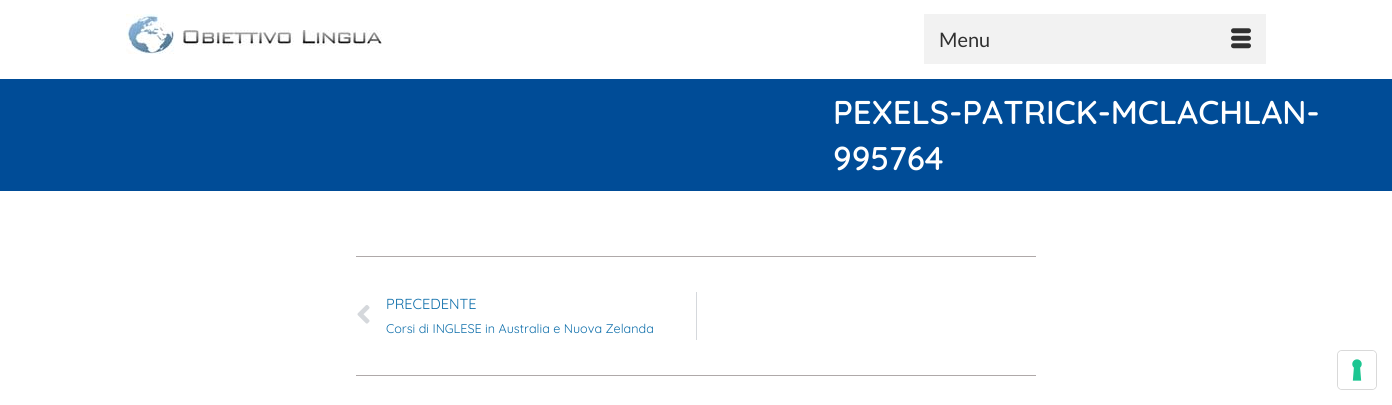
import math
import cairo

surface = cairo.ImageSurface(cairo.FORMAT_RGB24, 1392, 405)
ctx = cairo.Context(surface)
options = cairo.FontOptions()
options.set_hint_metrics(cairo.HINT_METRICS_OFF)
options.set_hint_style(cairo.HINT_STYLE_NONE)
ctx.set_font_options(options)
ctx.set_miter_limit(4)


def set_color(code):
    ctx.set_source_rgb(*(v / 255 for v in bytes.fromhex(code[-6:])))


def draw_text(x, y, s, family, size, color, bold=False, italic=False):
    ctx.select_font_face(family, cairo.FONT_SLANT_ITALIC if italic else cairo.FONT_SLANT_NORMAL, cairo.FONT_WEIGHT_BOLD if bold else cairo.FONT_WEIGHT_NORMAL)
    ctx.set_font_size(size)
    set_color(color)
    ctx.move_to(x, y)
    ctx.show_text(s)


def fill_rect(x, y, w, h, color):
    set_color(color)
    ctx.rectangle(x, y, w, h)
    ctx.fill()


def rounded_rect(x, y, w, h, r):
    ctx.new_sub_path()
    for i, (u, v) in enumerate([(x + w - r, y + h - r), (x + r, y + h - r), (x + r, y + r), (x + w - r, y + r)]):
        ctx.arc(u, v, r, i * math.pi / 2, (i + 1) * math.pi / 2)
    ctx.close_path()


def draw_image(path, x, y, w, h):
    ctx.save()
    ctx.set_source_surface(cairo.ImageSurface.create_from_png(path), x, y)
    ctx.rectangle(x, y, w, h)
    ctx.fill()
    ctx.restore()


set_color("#ffffff")
ctx.paint()
draw_image("assets/img1.png", 126, 14, 256, 40)
fill_rect(924, 14, 342, 50, "#f2f2f2")
draw_text(939, 47, "Menu", "Lato", 20, "#303030")
draw_image("assets/img2.png", 1231, 28, 20, 21)
fill_rect(0, 79, 1392, 112, "#004c97")
draw_text(833, 124, "PEXELS-PATRICK-MCLACHLAN-", "Quicksand SemiBold", 33, "#ffffff")
draw_text(833, 170, "995764", "Quicksand SemiBold", 33, "#ffffff")
fill_rect(356, 256, 680, 1, "#afa9a9")
draw_image("assets/img3.png", 357, 305, 13, 19)
draw_text(386, 309, "PRECEDENTE", "Quicksand", 14.5, "#0d6eaa")
draw_text(386, 333, "Corsi di INGLESE in Australia e Nuova Zelanda", "Quicksand", 12.6, "#0d6eaa")
fill_rect(696, 292, 1, 48, "#d5d8dc")
fill_rect(356, 375, 680, 1, "#afa9a9")
rounded_rect(1337.5, 350.5, 39, 39, 4.5)
set_color("#d9d9d9")
ctx.set_line_width(1)
ctx.stroke()
set_color("#ffffff")
rounded_rect(1338, 351, 38, 38, 4)
ctx.fill()
draw_image("assets/img4.png", 1352, 359, 10, 22)
surface.write_to_png("output.png")
